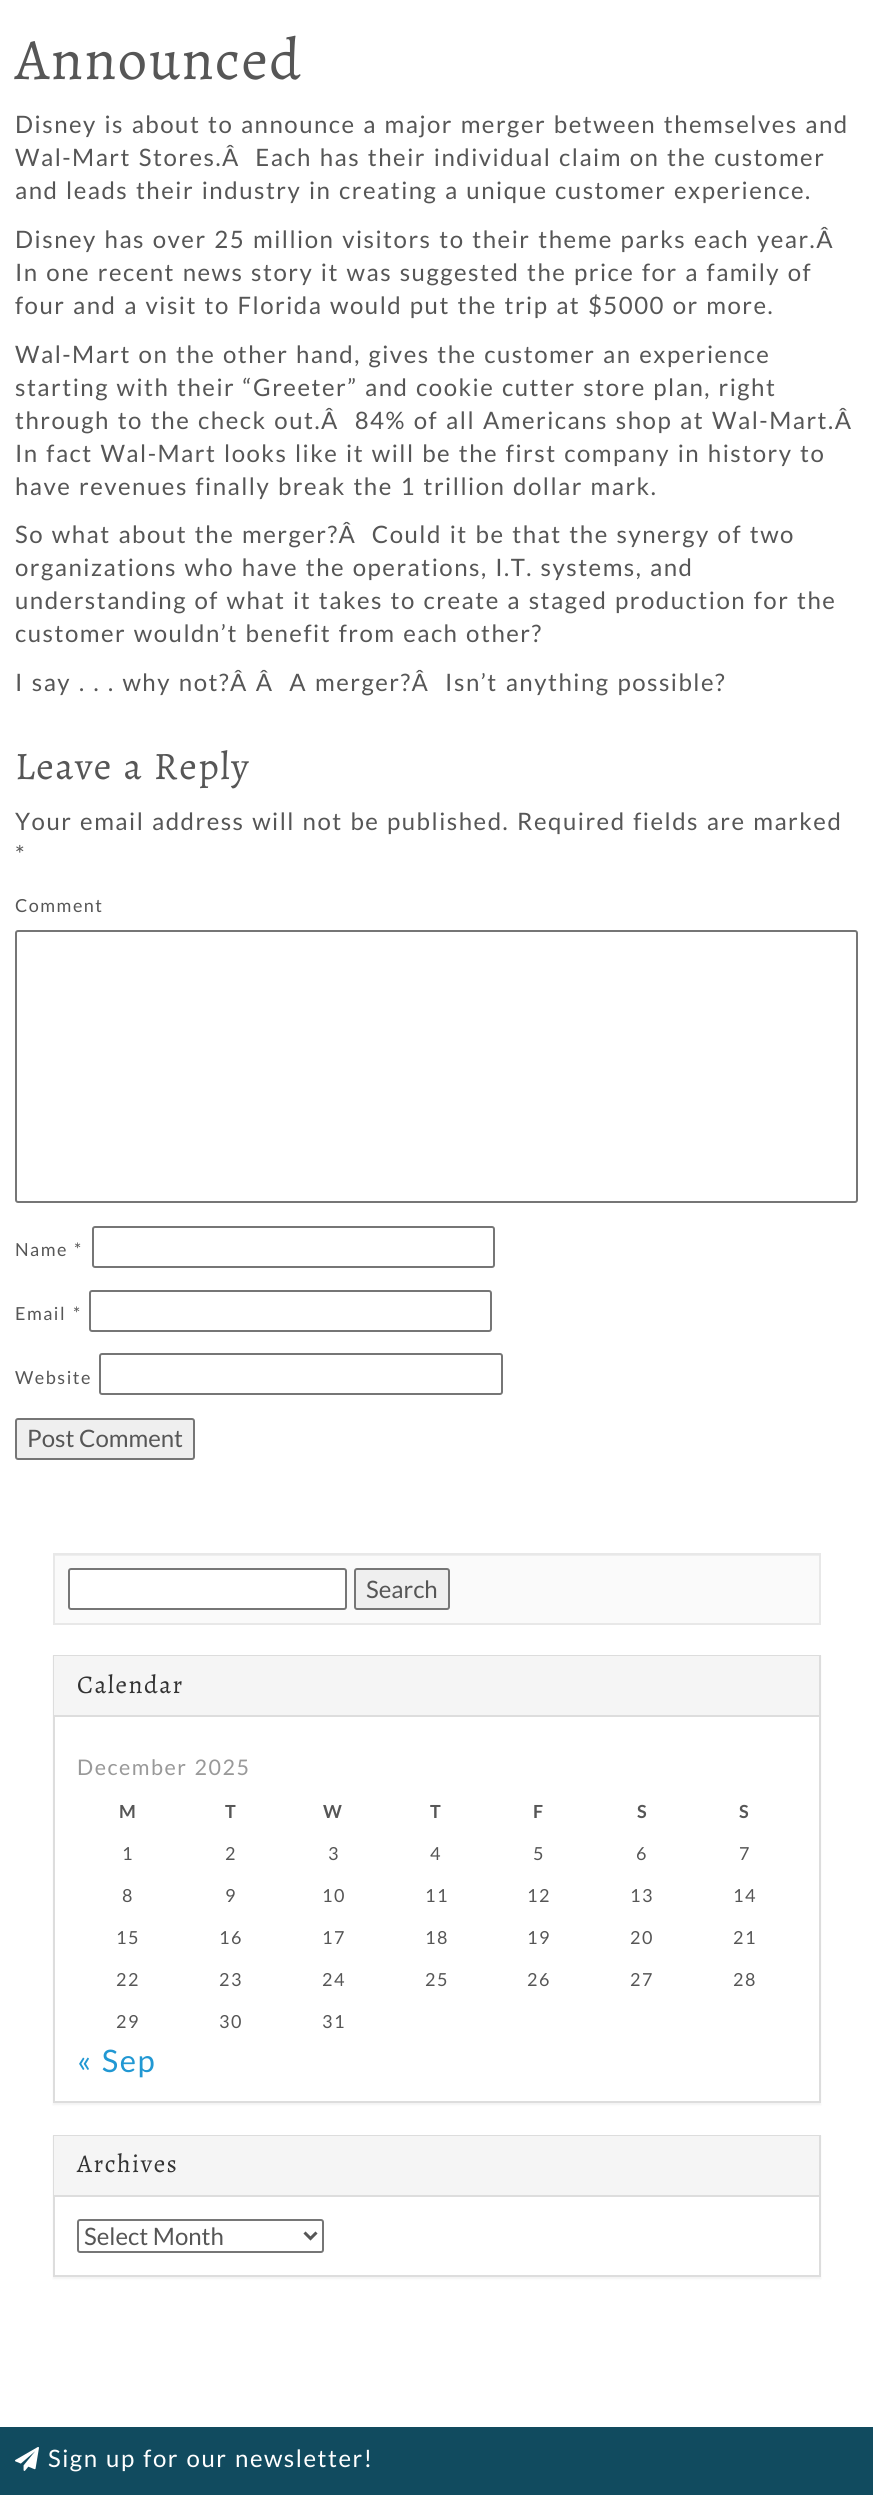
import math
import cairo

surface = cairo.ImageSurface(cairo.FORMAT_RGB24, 873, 2495)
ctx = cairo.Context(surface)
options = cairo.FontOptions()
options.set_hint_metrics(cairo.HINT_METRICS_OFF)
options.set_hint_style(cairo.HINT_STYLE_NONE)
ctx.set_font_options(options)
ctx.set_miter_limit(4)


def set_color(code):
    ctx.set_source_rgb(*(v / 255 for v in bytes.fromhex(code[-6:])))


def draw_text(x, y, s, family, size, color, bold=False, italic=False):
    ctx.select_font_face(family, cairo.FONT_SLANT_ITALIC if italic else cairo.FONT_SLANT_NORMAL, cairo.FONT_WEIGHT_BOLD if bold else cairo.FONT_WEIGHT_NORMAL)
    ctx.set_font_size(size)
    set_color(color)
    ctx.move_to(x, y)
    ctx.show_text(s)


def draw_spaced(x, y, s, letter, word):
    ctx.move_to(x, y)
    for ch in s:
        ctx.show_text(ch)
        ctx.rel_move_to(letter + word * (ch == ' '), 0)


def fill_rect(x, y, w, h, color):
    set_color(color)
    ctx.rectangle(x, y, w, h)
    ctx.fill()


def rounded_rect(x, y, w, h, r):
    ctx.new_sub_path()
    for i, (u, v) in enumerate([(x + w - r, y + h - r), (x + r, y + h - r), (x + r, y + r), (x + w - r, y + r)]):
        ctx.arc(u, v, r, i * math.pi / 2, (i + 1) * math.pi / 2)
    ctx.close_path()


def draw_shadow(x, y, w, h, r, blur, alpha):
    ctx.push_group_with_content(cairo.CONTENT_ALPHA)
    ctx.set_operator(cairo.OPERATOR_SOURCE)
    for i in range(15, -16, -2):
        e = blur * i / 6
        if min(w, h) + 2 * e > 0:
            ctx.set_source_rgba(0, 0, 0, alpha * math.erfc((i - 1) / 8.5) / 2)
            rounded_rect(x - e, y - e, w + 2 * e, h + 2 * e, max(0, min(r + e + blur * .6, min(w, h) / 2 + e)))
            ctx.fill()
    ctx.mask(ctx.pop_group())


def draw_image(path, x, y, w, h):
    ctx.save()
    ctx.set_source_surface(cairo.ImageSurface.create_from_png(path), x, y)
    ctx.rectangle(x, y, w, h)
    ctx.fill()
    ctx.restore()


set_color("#ffffff")
ctx.paint()
ctx.select_font_face("Alegreya")
ctx.set_font_size(58.5)
set_color("#565656")
draw_spaced(15, 79, "Announced", 1.5, 0)
ctx.select_font_face("Lato")
ctx.set_font_size(24)
draw_spaced(15, 133, "Disney is about to announce a major merger between themselves and", 1.5, 1.5)
draw_spaced(15, 166, "Wal-Mart Stores.Â  Each has their individual claim on the customer", 1.5, 1.6)
draw_spaced(15, 199, "and leads their industry in creating a unique customer experience.", 1.5, 1.5)
draw_spaced(15, 248, "Disney has over 25 million visitors to their theme parks each year.Â", 1.5, 1.6)
draw_spaced(15, 281, "In one recent news story it was suggested the price for a family of", 1.5, 1.5)
draw_spaced(15, 314, "four and a visit to Florida would put the trip at $5000 or more.", 1.5, 1.5)
draw_spaced(15, 363, "Wal-Mart on the other hand, gives the customer an experience", 1.5, 1.5)
draw_spaced(15, 396, "starting with their “Greeter” and cookie cutter store plan, right", 1.5, 1.5)
draw_spaced(15, 429, "through to the check out.Â  84% of all Americans shop at Wal-Mart.Â", 1.5, 1.75)
draw_spaced(15, 462, "In fact Wal-Mart looks like it will be the first company in history to", 1.5, 1.5)
draw_spaced(15, 495, "have revenues finally break the 1 trillion dollar mark.", 1.5, 1.5)
draw_spaced(15, 543, "So what about the merger?Â  Could it be that the synergy of two", 1.5, 1.6)
draw_spaced(15, 576, "organizations who have the operations, I.T. systems, and", 1.5, 1.5)
draw_spaced(15, 609, "understanding of what it takes to create a staged production for the", 1.5, 1.5)
draw_spaced(15, 642, "customer wouldn’t benefit from each other?", 1.5, 1.5)
draw_spaced(15, 691, "I say . . . why not?Â Â  A merger?Â  Isn’t anything possible?", 1.5, 1.75)
ctx.select_font_face("Alegreya")
ctx.set_font_size(39)
draw_spaced(15, 779, "Leave a Reply", 1.5, 1.5)
ctx.select_font_face("Lato")
ctx.set_font_size(24)
draw_spaced(15, 830, "Your email address will not be published.", 1.5, 1.5)
draw_spaced(517, 830, "Required fields are marked", 1.5, 1.5)
draw_spaced(15, 863, "*", 1.5, 0)
ctx.set_font_size(18)
draw_spaced(15, 912, "Comment", 1.5, 0)
rounded_rect(16, 931, 841, 271, 2)
set_color("#767676")
ctx.stroke()
set_color("#565656")
draw_spaced(15, 1256, "Name", 1.5, 0)
draw_spaced(74, 1256, "*", 1.5, 0)
rounded_rect(93, 1227, 401, 40, 2)
set_color("#767676")
ctx.stroke()
set_color("#565656")
draw_spaced(15, 1320, "Email", 1.5, 0)
draw_spaced(73, 1320, "*", 1.5, 0)
rounded_rect(90, 1291, 401, 40, 2)
set_color("#767676")
ctx.stroke()
set_color("#565656")
draw_spaced(15, 1384, "Website", 1.5, 0)
rounded_rect(100, 1354, 402, 40, 2)
set_color("#767676")
ctx.stroke()
set_color("#efefef")
rounded_rect(16, 1419, 178, 40, 2)
ctx.fill_preserve()
set_color("#767676")
ctx.stroke()
draw_text(27, 1447, "Post Comment", "Lato", 24, "#565656")
fill_rect(55, 1556, 764, 67, "#fafafa")
fill_rect(54, 1555, 765, 1, "#eeeeee")
ctx.rectangle(54, 1554, 766, 70)
set_color("#e8e8e8")
ctx.stroke()
set_color("#ffffff")
rounded_rect(69, 1569, 277, 40, 2)
ctx.fill_preserve()
set_color("#767676")
ctx.stroke()
set_color("#efefef")
rounded_rect(355, 1569, 94, 40, 2)
ctx.fill_preserve()
set_color("#767676")
ctx.stroke()
draw_text(366, 1598, "Search", "Lato", 24, "#565656")
set_color("#000000")
draw_shadow(53, 1656, 768, 449, 0, 1, 0.05)
fill_rect(55, 1717, 764, 384, "#ffffff")
ctx.rectangle(54, 1656, 766, 446)
set_color("#dddddd")
ctx.stroke()
fill_rect(54, 1656, 765, 59, "#f5f5f5")
fill_rect(54, 1715, 765, 2, "#dddddd")
ctx.select_font_face("Alegreya")
ctx.set_font_size(25.5)
set_color("#333333")
draw_spaced(77, 1693, "Calendar", 1.5, 0)
ctx.select_font_face("Lato")
ctx.set_font_size(21.5)
set_color("#999999")
draw_spaced(77, 1775, "December 2025", 1.5, 1.5)
ctx.select_font_face("Lato", cairo.FONT_SLANT_NORMAL, cairo.FONT_WEIGHT_BOLD)
ctx.set_font_size(18)
set_color("#565656")
draw_spaced(119, 1818, "M", 1.5, 0)
draw_spaced(225, 1818, "T", 1.5, 0)
draw_spaced(323, 1818, "W", 1.5, 0)
draw_spaced(430, 1818, "T", 1.5, 0)
draw_spaced(533, 1818, "F", 1.5, 0)
draw_spaced(637, 1818, "S", 1.5, 0)
draw_spaced(739, 1818, "S", 1.5, 0)
ctx.select_font_face("Lato")
draw_spaced(122, 1860, "1", 1.5, 0)
draw_spaced(225, 1860, "2", 1.5, 0)
draw_spaced(328, 1860, "3", 1.5, 0)
draw_spaced(430, 1860, "4", 1.5, 0)
draw_spaced(533, 1860, "5", 1.5, 0)
draw_spaced(636, 1860, "6", 1.5, 0)
draw_spaced(739, 1860, "7", 1.5, 0)
draw_spaced(122, 1902, "8", 1.5, 0)
draw_spaced(225, 1902, "9", 1.5, 0)
draw_spaced(322, 1902, "10", 1.5, 0)
draw_spaced(425, 1902, "11", 1.5, 0)
draw_spaced(527, 1902, "12", 1.5, 0)
draw_spaced(630, 1902, "13", 1.5, 0)
draw_spaced(733, 1902, "14", 1.5, 0)
draw_spaced(116, 1944, "15", 1.5, 0)
draw_spaced(219, 1944, "16", 1.5, 0)
draw_spaced(322, 1944, "17", 1.5, 0)
draw_spaced(425, 1944, "18", 1.5, 0)
draw_spaced(527, 1944, "19", 1.5, 0)
draw_spaced(630, 1944, "20", 1.5, 0)
draw_spaced(733, 1944, "21", 1.5, 0)
draw_spaced(116, 1986, "22", 1.5, 0)
draw_spaced(219, 1986, "23", 1.5, 0)
draw_spaced(322, 1986, "24", 1.5, 0)
draw_spaced(425, 1986, "25", 1.5, 0)
draw_spaced(527, 1986, "26", 1.5, 0)
draw_spaced(630, 1986, "27", 1.5, 0)
draw_spaced(733, 1986, "28", 1.5, 0)
draw_spaced(116, 2028, "29", 1.5, 0)
draw_spaced(219, 2028, "30", 1.5, 0)
draw_spaced(322, 2028, "31", 1.5, 0)
ctx.set_font_size(31)
set_color("#2198d3")
draw_spaced(77, 2072, "« Sep", 1.5, 1.5)
set_color("#000000")
draw_shadow(53, 2136, 768, 143, 0, 1, 0.05)
fill_rect(55, 2197, 764, 78, "#ffffff")
ctx.rectangle(54, 2136, 766, 140)
set_color("#dddddd")
ctx.stroke()
fill_rect(54, 2136, 765, 59, "#f5f5f5")
fill_rect(54, 2195, 765, 2, "#dddddd")
ctx.select_font_face("Alegreya")
ctx.set_font_size(25.5)
set_color("#333333")
draw_spaced(77, 2172, "Archives", 1.5, 0)
rounded_rect(78, 2220, 245, 32, 2)
set_color("#767676")
ctx.stroke()
ctx.new_path()
ctx.move_to(304.5, 2232.5)
ctx.line_to(310.5, 2238.5)
ctx.line_to(316.5, 2232.5)
set_color("#565656")
ctx.set_line_width(3)
ctx.stroke()
draw_text(84, 2245, "Select Month", "Lato", 24, "#565656")
fill_rect(0, 2427, 873, 68, "#114b5f")
draw_image("assets/img1.png", 15, 2447, 24, 24)
set_color("#ffffff")
draw_spaced(48, 2467, "Sign up for our newsletter!", 1.5, 1.5)
surface.write_to_png("output.png")
